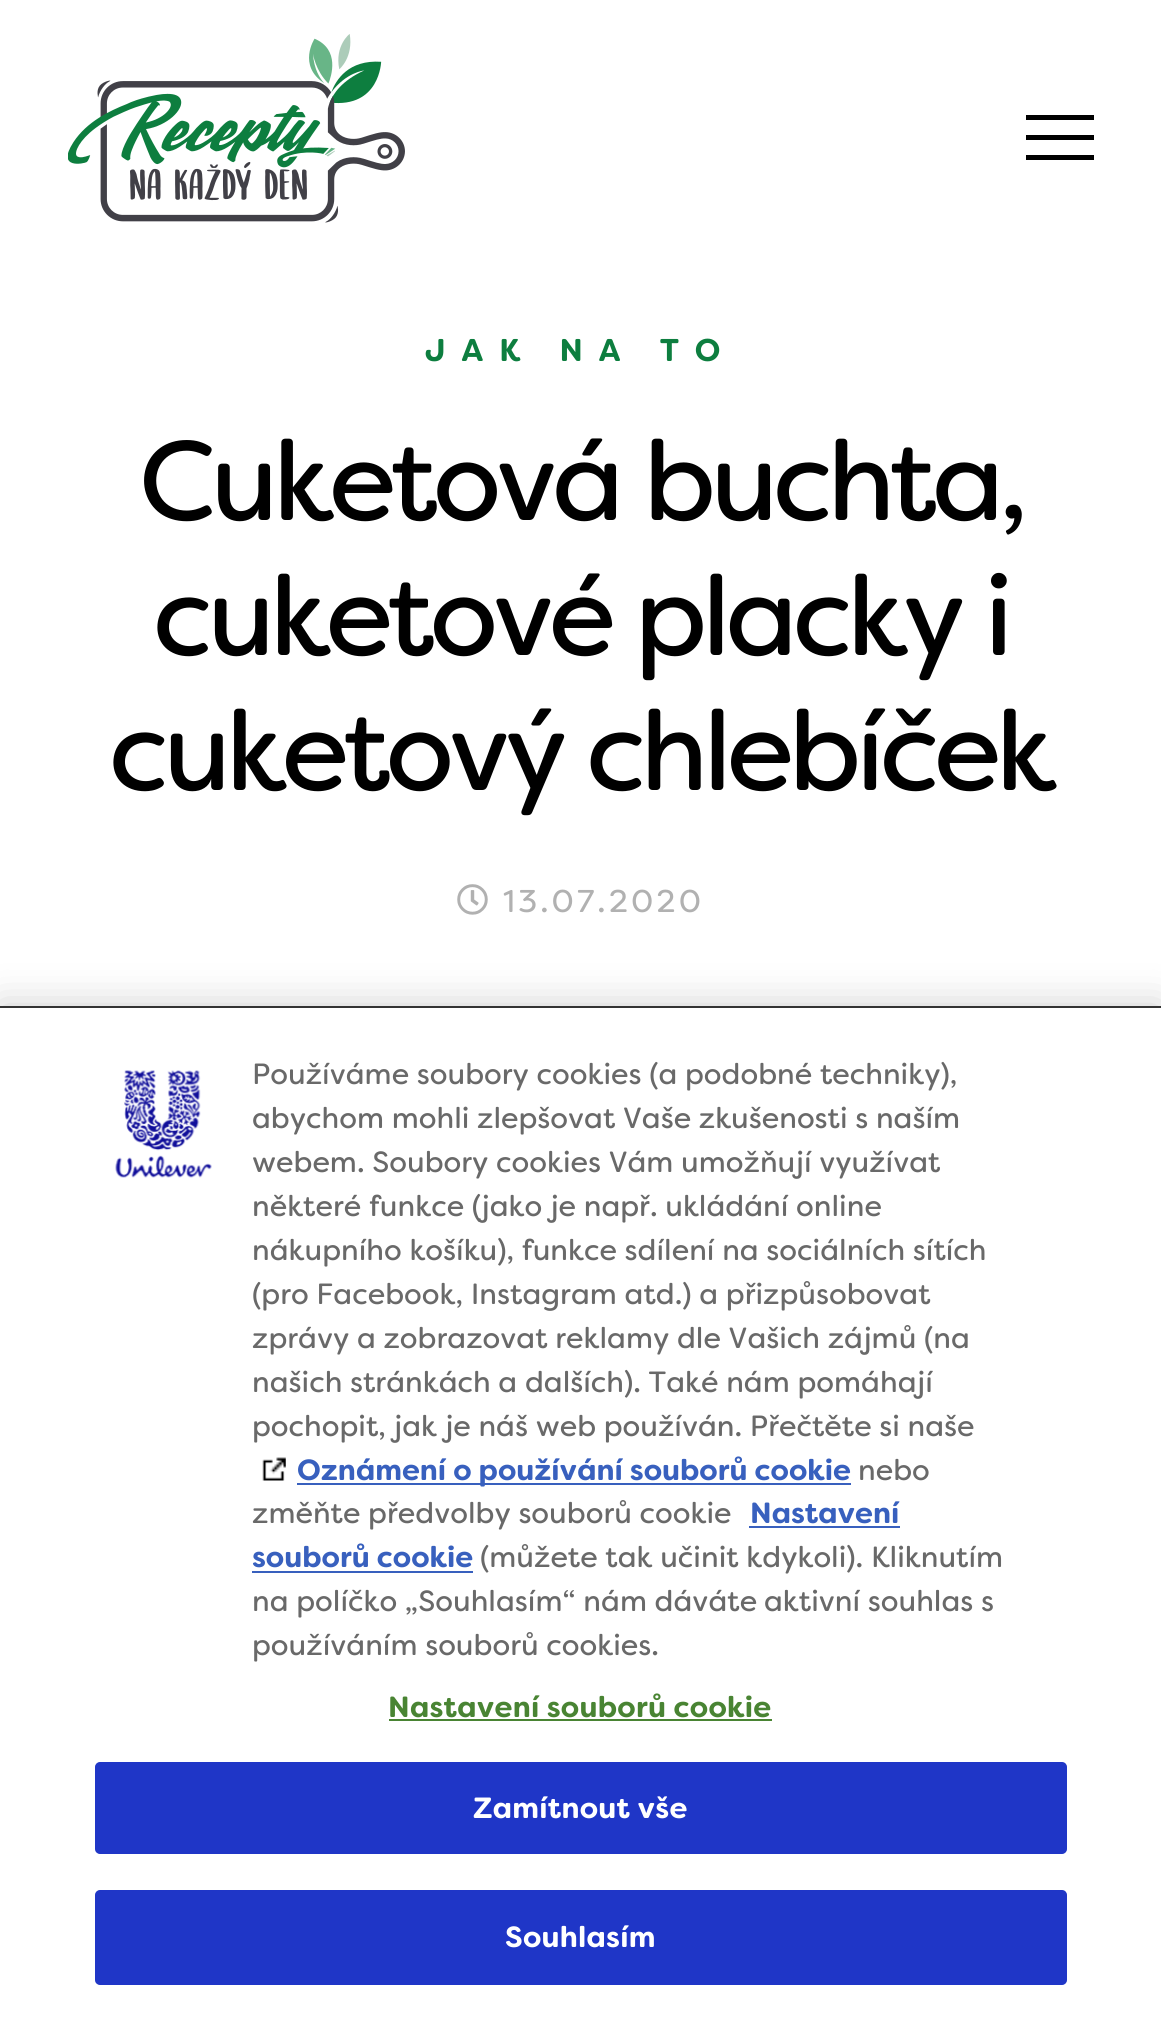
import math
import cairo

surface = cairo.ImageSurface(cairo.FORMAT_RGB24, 1161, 2020)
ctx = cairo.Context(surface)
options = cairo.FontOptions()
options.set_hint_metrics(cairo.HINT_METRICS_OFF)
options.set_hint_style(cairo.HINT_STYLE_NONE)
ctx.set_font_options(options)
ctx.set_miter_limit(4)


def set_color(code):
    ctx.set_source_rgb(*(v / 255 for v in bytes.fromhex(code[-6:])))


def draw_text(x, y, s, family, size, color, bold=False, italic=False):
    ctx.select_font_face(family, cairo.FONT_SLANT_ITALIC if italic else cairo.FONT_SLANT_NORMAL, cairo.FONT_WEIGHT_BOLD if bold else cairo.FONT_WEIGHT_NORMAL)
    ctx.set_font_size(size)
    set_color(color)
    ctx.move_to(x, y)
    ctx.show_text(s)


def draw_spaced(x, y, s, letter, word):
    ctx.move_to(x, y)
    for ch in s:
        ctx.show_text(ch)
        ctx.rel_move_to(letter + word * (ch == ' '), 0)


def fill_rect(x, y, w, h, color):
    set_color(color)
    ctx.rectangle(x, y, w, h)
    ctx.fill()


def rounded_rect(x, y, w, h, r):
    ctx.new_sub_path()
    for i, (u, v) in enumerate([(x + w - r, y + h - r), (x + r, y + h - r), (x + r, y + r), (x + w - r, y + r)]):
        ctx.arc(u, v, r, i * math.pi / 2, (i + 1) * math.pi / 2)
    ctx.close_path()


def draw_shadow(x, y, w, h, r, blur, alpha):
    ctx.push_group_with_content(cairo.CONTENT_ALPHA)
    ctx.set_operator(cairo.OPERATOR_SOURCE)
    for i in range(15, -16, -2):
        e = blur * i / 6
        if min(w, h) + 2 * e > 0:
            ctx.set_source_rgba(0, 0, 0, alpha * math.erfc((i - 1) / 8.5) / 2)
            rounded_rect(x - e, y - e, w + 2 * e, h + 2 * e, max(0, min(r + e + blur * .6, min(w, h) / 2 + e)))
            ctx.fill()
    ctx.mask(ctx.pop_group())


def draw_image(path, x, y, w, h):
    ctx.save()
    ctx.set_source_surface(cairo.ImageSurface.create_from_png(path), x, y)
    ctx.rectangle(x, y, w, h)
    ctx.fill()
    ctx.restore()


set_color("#ffffff")
ctx.paint()
draw_image("assets/img1.png", 68, 34, 337, 189)
fill_rect(1026, 115, 68, 5, "#000000")
fill_rect(1026, 135, 68, 5, "#000000")
fill_rect(1026, 155, 68, 5, "#000000")
ctx.select_font_face("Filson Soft", cairo.FONT_SLANT_NORMAL, cairo.FONT_WEIGHT_BOLD)
ctx.set_font_size(31.5)
set_color("#0d7e3f")
draw_spaced(425, 361, "JAK NA TO", 15.75, 0)
ctx.select_font_face("Filson Soft")
ctx.set_font_size(112.5)
set_color("#000000")
draw_spaced(139, 520, "Cuketová buchta,", -5.4, 0)
draw_spaced(153, 655, "cuketové placky i", -5.4, 0)
draw_spaced(109, 790, "cuketový chlebíček", -5.4, 0)
draw_image("assets/img2.png", 457, 884, 31, 31)
ctx.set_font_size(31.5)
set_color("#b1b1b1")
draw_spaced(503, 912, "13.07.2020", 3.1, 0)
set_color("#000000")
draw_shadow(0, 1006, 1161, 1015, 0, 20, 0.2)
fill_rect(0, 1008, 1161, 1012, "#ffffff")
fill_rect(0, 1006, 1161, 2, "#333333")
draw_image("assets/img3.png", 115, 1070, 97, 108)
draw_text(252, 1084, "Používáme soubory cookies (a podobné techniky),", "Filson Soft", 29.25, "#696969")
draw_text(252, 1128, "abychom mohli zlepšovat Vaše zkušenosti s naším", "Filson Soft", 29.25, "#696969")
draw_text(252, 1172, "webem. Soubory cookies Vám umožňují využívat", "Filson Soft", 29.25, "#696969")
draw_text(252, 1216, "některé funkce (jako je např. ukládání online", "Filson Soft", 29.25, "#696969")
draw_text(252, 1260, "nákupního košíku), funkce sdílení na sociálních sítích", "Filson Soft", 29.25, "#696969")
draw_text(252, 1304, "(pro Facebook, Instagram atd.) a přizpůsobovat", "Filson Soft", 29.25, "#696969")
draw_text(252, 1348, "zprávy a zobrazovat reklamy dle Vašich zájmů (na", "Filson Soft", 29.25, "#696969")
draw_text(252, 1392, "našich stránkách a dalších). Také nám pomáhají", "Filson Soft", 29.25, "#696969")
draw_text(252, 1436, "pochopit, jak je náš web používán. Přečtěte si naše", "Filson Soft", 29.25, "#696969")
draw_image("assets/img4.png", 262, 1457, 24, 24)
fill_rect(297, 1483, 554, 2, "#3860be")
draw_text(297, 1480, "Oznámení o používání souborů cookie", "Filson Soft", 29.25, "#3860be", bold=True)
draw_text(858, 1480, "nebo", "Filson Soft", 29.25, "#696969")
draw_text(252, 1523, "změňte předvolby souborů cookie", "Filson Soft", 29.25, "#696969")
draw_text(750, 1523, "Nastavení", "Filson Soft", 29.25, "#3860be", bold=True)
fill_rect(749, 1526, 151, 2, "#3860be")
draw_text(252, 1567, "souborů cookie", "Filson Soft", 29.25, "#3860be", bold=True)
fill_rect(252, 1571, 221, 2, "#3860be")
draw_text(480, 1567, "(můžete tak učinit kdykoli). Kliknutím", "Filson Soft", 29.25, "#696969")
draw_text(252, 1611, "na políčko „Souhlasím“ nám dáváte", "Filson Soft", 29.25, "#696969")
draw_text(764, 1611, "aktivní souhlas s", "Filson Soft", 29.25, "#696969")
draw_text(252, 1655, "používáním souborů cookies.", "Filson Soft", 29.25, "#696969")
ctx.select_font_face("Filson Soft", cairo.FONT_SLANT_NORMAL, cairo.FONT_WEIGHT_BOLD)
set_color("#498433")
draw_spaced(388, 1717, "Nastavení souborů cookie", 0.25, 0)
fill_rect(389, 1719, 383, 2, "#498433")
set_color("#1f36c7")
rounded_rect(96, 1763, 970, 90, 4)
ctx.fill_preserve()
ctx.stroke()
set_color("#ffffff")
draw_spaced(473, 1818, "Zamítnout vše", 0.25, 0)
set_color("#1f36c7")
rounded_rect(96, 1891, 970, 93, 4)
ctx.fill_preserve()
ctx.stroke()
set_color("#ffffff")
draw_spaced(505, 1947, "Souhlasím", 0.25, 0)
surface.write_to_png("output.png")
